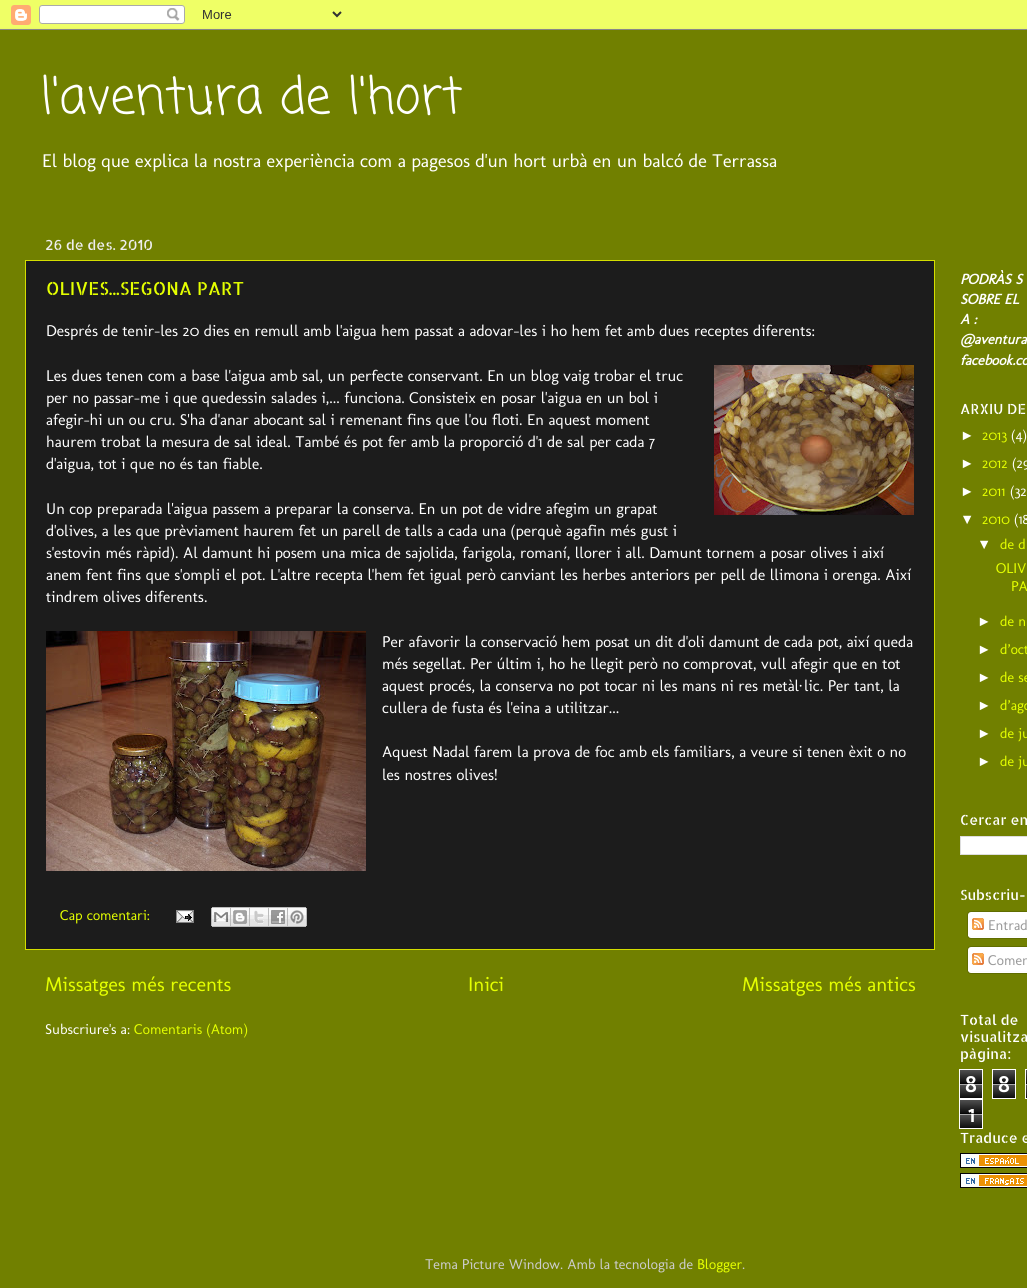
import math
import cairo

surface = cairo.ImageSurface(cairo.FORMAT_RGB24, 1027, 1288)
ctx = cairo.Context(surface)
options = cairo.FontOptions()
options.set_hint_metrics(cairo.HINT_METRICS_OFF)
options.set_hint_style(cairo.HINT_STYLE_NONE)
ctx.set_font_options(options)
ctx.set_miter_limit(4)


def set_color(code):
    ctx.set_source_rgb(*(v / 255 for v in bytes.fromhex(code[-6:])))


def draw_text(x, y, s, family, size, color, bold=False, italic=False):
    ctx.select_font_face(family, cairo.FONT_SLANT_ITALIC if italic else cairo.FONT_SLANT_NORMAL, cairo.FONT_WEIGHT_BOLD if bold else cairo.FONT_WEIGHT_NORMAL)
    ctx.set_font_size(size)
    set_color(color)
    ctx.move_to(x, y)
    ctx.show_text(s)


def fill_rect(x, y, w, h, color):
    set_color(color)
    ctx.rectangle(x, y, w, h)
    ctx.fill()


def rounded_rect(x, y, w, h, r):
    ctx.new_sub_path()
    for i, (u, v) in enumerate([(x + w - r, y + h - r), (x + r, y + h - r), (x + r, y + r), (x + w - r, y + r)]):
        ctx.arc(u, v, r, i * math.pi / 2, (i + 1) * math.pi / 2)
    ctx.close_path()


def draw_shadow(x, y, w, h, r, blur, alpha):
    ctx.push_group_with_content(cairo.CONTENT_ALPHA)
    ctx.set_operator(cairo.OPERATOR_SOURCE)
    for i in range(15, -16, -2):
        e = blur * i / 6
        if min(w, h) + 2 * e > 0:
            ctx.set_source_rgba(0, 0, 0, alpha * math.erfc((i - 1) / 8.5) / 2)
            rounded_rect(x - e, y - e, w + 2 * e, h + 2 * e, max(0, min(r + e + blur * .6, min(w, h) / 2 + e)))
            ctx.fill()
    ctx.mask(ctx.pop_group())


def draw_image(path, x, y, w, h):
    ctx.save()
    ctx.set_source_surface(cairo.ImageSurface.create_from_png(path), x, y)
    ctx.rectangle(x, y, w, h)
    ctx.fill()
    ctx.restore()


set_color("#e5ff00")
ctx.paint()
set_color("#000000")
draw_shadow(0, 30, 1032, 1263, 0, 1.5, 0.15)
draw_image("assets/img1.png", 0, 0, 1027, 30)
fill_rect(0, 30, 1027, 1258, "#718000")
draw_text(40, 113, "l'aventura de l'hort", "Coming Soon", 50, "#ffffff")
draw_text(42, 167, "El blog que explica la nostra experiència com a pagesos d'un hort urbà en un balcó de Terrassa", "Molengo", 18.7, "#ffffff")
draw_text(45, 250, "26 de des. 2010", "Allerta Stencil", 14, "#eeeeee")
set_color("#1c1c1c")
ctx.rectangle(25.5, 260.5, 909, 689)
ctx.fill_preserve()
set_color("#d4dd00")
ctx.set_line_width(1)
ctx.stroke()
draw_text(46, 295, "OLIVES...SEGONA PART", "Allerta Stencil", 18, "#e4ff00")
draw_text(46, 336, "Després de tenir-les 20 dies en remull amb l'aigua hem passat a adovar-les i ho hem fet amb dues receptes diferents:", "Molengo", 15.85, "#ffffff")
draw_text(46, 381, "Les dues tenen com a base l'aigua amb sal, un perfecte conservant. En un blog vaig trobar el truc", "Molengo", 15.85, "#ffffff")
draw_image("assets/img2.png", 714, 365, 200, 150)
draw_text(46, 403, "per no passar-me i que quedessin salades i,... funciona. Consisteix en posar l'aigua en un bol i", "Molengo", 15.85, "#ffffff")
draw_text(46, 425, "afegir-hi un ou cru. S'ha d'anar abocant sal i remenant fins que l'ou floti. En aquest moment", "Molengo", 15.85, "#ffffff")
draw_text(46, 447, "haurem trobat la mesura de sal ideal. També és pot fer amb la proporció d'1 de sal per cada 7", "Molengo", 15.85, "#ffffff")
draw_text(46, 469, "d'aigua, tot i que no és tan fiable.", "Molengo", 15.85, "#ffffff")
draw_text(46, 514, "Un cop preparada l'aigua passem a preparar la conserva. En un pot de vidre afegim un grapat", "Molengo", 15.85, "#ffffff")
draw_text(46, 536, "d'olives, a les que prèviament haurem fet un parell de talls a cada una (perquè agafin més gust i", "Molengo", 15.85, "#ffffff")
draw_text(46, 558, "s'estovin més ràpid). Al damunt hi posem una mica de sajolida, farigola, romaní, llorer i all. Damunt tornem a posar olives i així", "Molengo", 15.85, "#ffffff")
draw_text(46, 580, "anem fent fins que s'ompli el pot. L'altre recepta l'hem fet igual però canviant les herbes anteriors per pell de llimona i orenga. Així", "Molengo", 15.85, "#ffffff")
draw_text(46, 602, "tindrem olives diferents.", "Molengo", 15.85, "#ffffff")
draw_image("assets/img3.png", 46, 631, 320, 240)
draw_text(382, 647, "Per afavorir la conservació hem posat un dit d'oli damunt de cada pot, així queda", "Molengo", 15.85, "#ffffff")
draw_text(382, 669, "més segellat. Per últim i, ho he llegit però no comprovat, vull afegir que en tot", "Molengo", 15.85, "#ffffff")
draw_text(382, 691, "aquest procés, la conserva no pot tocar ni les mans ni res metàl", "Molengo", 15.85, "#ffffff")
draw_text(798, 691, "·", "Liberation Serif", 15.85, "#ffffff")
draw_text(804, 691, "lic. Per tant, la", "Molengo", 15.85, "#ffffff")
draw_text(382, 713, "cullera de fusta és l'eina a utilitzar...", "Molengo", 15.85, "#ffffff")
draw_text(382, 757, "Aquest Nadal farem la prova de foc amb els familiars, a veure si tenen èxit o no", "Molengo", 15.85, "#ffffff")
draw_text(382, 780, "les nostres olives!", "Molengo", 15.85, "#ffffff")
draw_text(60, 920, "Cap comentari:", "Molengo", 14.4, "#e4ff00")
draw_image("assets/img4.png", 176, 910, 18, 13)
draw_image("assets/img5.png", 211, 907, 20, 20)
draw_image("assets/img6.png", 231, 907, 19, 20)
draw_image("assets/img7.png", 250, 907, 19, 20)
draw_image("assets/img8.png", 269, 907, 19, 20)
draw_image("assets/img9.png", 288, 907, 19, 20)
draw_text(45, 991, "Missatges més recents", "Molengo", 20.25, "#e4ff00")
draw_text(468, 991, "Inici", "Molengo", 20.25, "#e4ff00")
draw_text(742, 991, "Missatges més antics", "Molengo", 20.25, "#e4ff00")
draw_text(45, 1034, "Subscriure's a:", "Molengo", 14.4, "#ffffff")
draw_text(134, 1034, "Comentaris (Atom)", "Molengo", 14.4, "#e4ff00")
draw_text(960, 284, "PODRÀS S", "Molengo", 14.4, "#ffffff", bold=True, italic=True)
draw_text(960, 304, "SOBRE EL", "Molengo", 14.4, "#ffffff", bold=True, italic=True)
draw_text(960, 324, "A :", "Molengo", 14.4, "#ffffff", bold=True, italic=True)
draw_text(960, 344, "@aventura", "Molengo", 14.4, "#ffffff", bold=True, italic=True)
draw_text(960, 365, "facebook.co", "Molengo", 14.4, "#ffffff", bold=True, italic=True)
draw_text(960, 414, "ARXIU DE", "Allerta Stencil", 14, "#ffffff")
draw_text(960, 440, "►", "Liberation Sans", 14.4, "#ffffff")
draw_text(982, 440, "2013", "Molengo", 14.4, "#e4ff00")
draw_text(1011, 440, "(4)", "Molengo", 14.4, "#ffffff")
draw_text(960, 468, "►", "Liberation Sans", 14.4, "#ffffff")
draw_text(982, 468, "2012", "Molengo", 14.4, "#e4ff00")
draw_text(1012, 468, "(29", "Molengo", 14.4, "#ffffff")
draw_text(960, 496, "►", "Liberation Sans", 14.4, "#ffffff")
draw_text(982, 496, "2011", "Molengo", 14.4, "#e4ff00")
draw_text(1010, 496, "(32", "Molengo", 14.4, "#ffffff")
draw_text(960, 524, "▼", "Liberation Sans", 14.4, "#ffffff")
draw_text(982, 524, "2010", "Molengo", 14.4, "#e4ff00")
draw_text(1014, 524, "(18", "Molengo", 14.4, "#ffffff")
draw_text(977, 549, "▼", "Liberation Sans", 14.4, "#ffffff")
draw_text(1000, 549, "de d", "Molengo", 14.4, "#e4ff00")
draw_text(996, 573, "OLIV", "Molengo", 14.4, "#e4ff00")
draw_text(1011, 591, "PA", "Molengo", 14.4, "#e4ff00")
draw_text(977, 626, "►", "Liberation Sans", 14.4, "#ffffff")
draw_text(1000, 626, "de n", "Molengo", 14.4, "#e4ff00")
draw_text(977, 654, "►", "Liberation Sans", 14.4, "#ffffff")
draw_text(1000, 654, "d’oct", "Molengo", 14.4, "#e4ff00")
draw_text(977, 682, "►", "Liberation Sans", 14.4, "#ffffff")
draw_text(1000, 682, "de se", "Molengo", 14.4, "#e4ff00")
draw_text(977, 710, "►", "Liberation Sans", 14.4, "#ffffff")
draw_text(1000, 710, "d’ago", "Molengo", 14.4, "#e4ff00")
draw_text(977, 738, "►", "Liberation Sans", 14.4, "#ffffff")
draw_text(1000, 738, "de ju", "Molengo", 14.4, "#e4ff00")
draw_text(977, 766, "►", "Liberation Sans", 14.4, "#ffffff")
draw_text(1000, 766, "de ju", "Molengo", 14.4, "#e4ff00")
draw_text(960, 825, "Cercar en", "Allerta Stencil", 14, "#ffffff")
ctx.rectangle(960.5, 836.5, 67, 18)
ctx.fill_preserve()
set_color("#dddddd")
ctx.stroke()
draw_text(960, 900, "Subscriu-", "Allerta Stencil", 14, "#ffffff")
draw_image("assets/img10.png", 967, 911, 60, 25)
draw_image("assets/img11.png", 972, 918, 12, 12)
draw_text(988, 930, "Entrad", "Molengo", 14.4, "#999999")
draw_image("assets/img12.png", 967, 936, 60, 3)
draw_image("assets/img10.png", 967, 946, 60, 25)
draw_image("assets/img11.png", 972, 953, 12, 12)
draw_text(988, 965, "Comen", "Molengo", 14.4, "#999999")
draw_image("assets/img12.png", 967, 971, 60, 3)
draw_text(960, 1025, "Total de", "Allerta Stencil", 14, "#ffffff")
draw_text(960, 1042, "visualitza", "Allerta Stencil", 14, "#ffffff")
draw_text(960, 1059, "pàgina:", "Allerta Stencil", 14, "#ffffff")
draw_image("assets/img13.png", 960, 1070, 22, 28)
ctx.rectangle(959.5, 1069.5, 23, 29)
ctx.stroke()
draw_text(965, 1092, "8", "Molengo", 24, "#ffffff", bold=True)
ctx.set_source_rgba(0, 0, 0, 0.65)
ctx.rectangle(960, 1083, 22, 1)
ctx.fill()
ctx.set_source_rgba(1, 1, 1, 0.65)
ctx.rectangle(960, 1084, 22, 1)
ctx.fill()
draw_image("assets/img13.png", 993, 1070, 22, 28)
ctx.rectangle(992.5, 1069.5, 23, 29)
set_color("#ffffff")
ctx.stroke()
draw_text(998, 1092, "8", "Molengo", 24, "#ffffff", bold=True)
ctx.set_source_rgba(0, 0, 0, 0.65)
ctx.rectangle(993, 1083, 22, 1)
ctx.fill()
ctx.set_source_rgba(1, 1, 1, 0.65)
ctx.rectangle(993, 1084, 22, 1)
ctx.fill()
draw_image("assets/img14.png", 1026, 1070, 1, 28)
ctx.rectangle(1025.5, 1069.5, 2, 29)
set_color("#ffffff")
ctx.stroke()
fill_rect(1026, 1083, 1, 1, "#040404")
fill_rect(1026, 1084, 1, 1, "#a8a8a8")
draw_image("assets/img13.png", 960, 1100, 22, 28)
ctx.rectangle(959.5, 1099.5, 23, 29)
set_color("#ffffff")
ctx.stroke()
draw_text(968, 1122, "1", "Molengo", 24, "#ffffff", bold=True)
ctx.set_source_rgba(0, 0, 0, 0.65)
ctx.rectangle(960, 1113, 22, 1)
ctx.fill()
ctx.set_source_rgba(1, 1, 1, 0.65)
ctx.rectangle(960, 1114, 22, 1)
ctx.fill()
draw_text(960, 1143, "Traduce e", "Allerta Stencil", 14, "#ffffff")
draw_image("assets/img15.png", 960, 1153, 67, 15)
draw_image("assets/img16.png", 960, 1173, 67, 15)
draw_text(425, 1269, "Tema Picture Window. Amb la tecnologia de", "Molengo", 14.4, "#cccccc")
draw_text(697, 1269, "Blogger", "Molengo", 14.4, "#e4ff00")
draw_text(742, 1269, ".", "Molengo", 14.4, "#cccccc")
surface.write_to_png("output.png")
